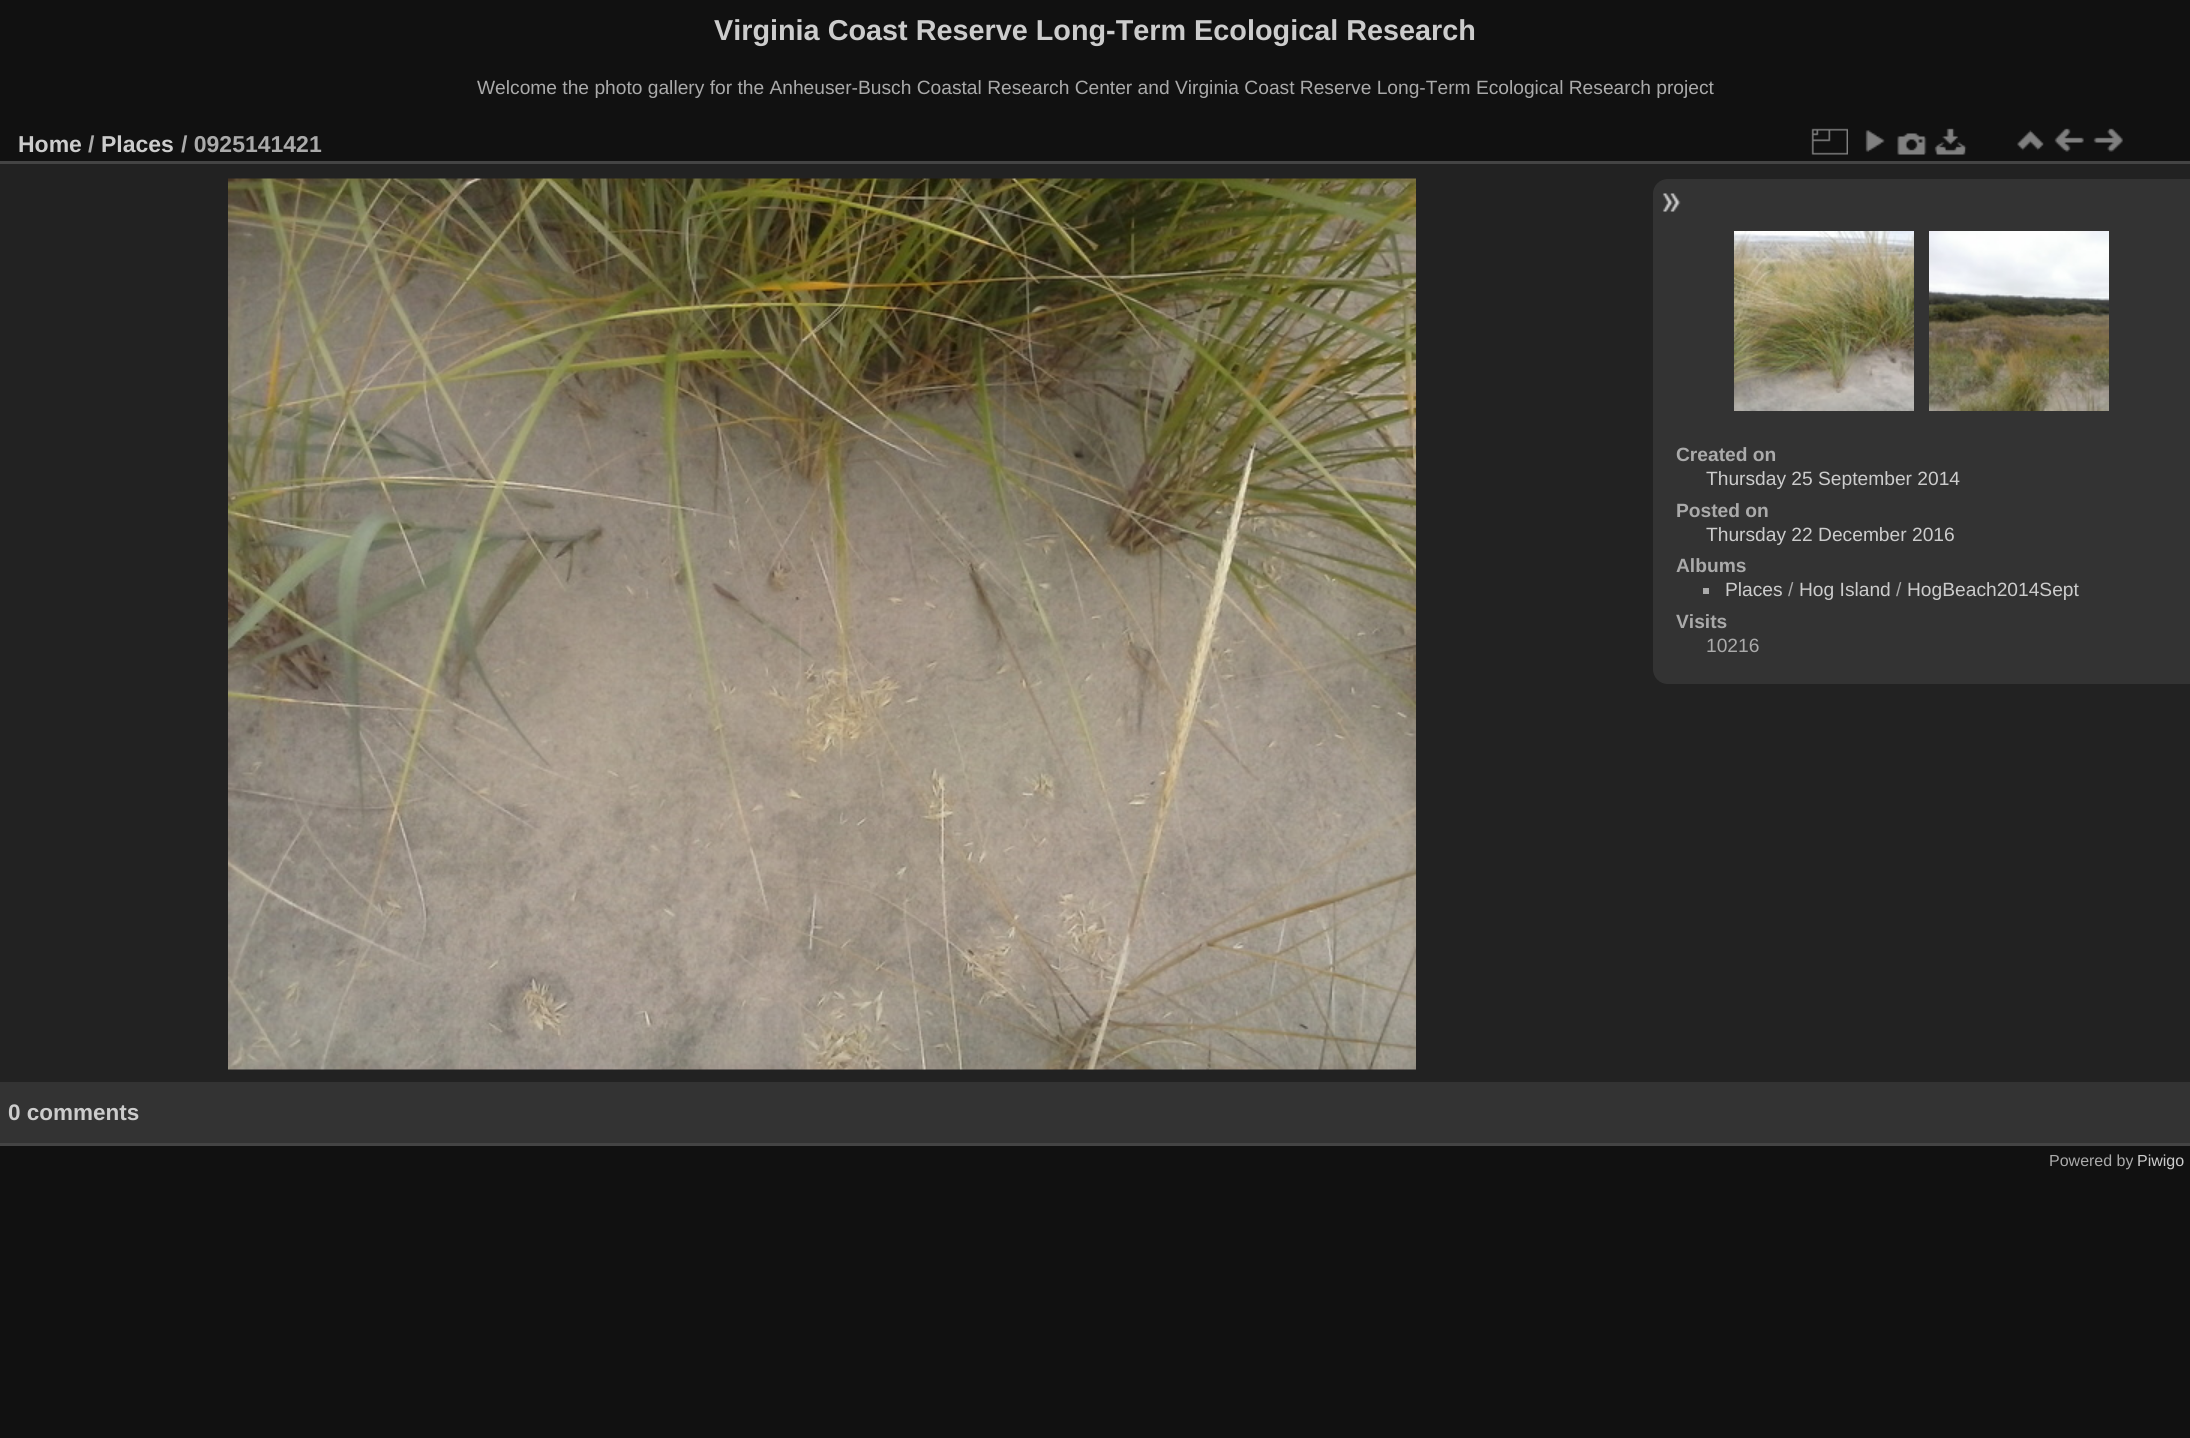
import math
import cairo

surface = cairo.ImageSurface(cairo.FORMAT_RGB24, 2190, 1438)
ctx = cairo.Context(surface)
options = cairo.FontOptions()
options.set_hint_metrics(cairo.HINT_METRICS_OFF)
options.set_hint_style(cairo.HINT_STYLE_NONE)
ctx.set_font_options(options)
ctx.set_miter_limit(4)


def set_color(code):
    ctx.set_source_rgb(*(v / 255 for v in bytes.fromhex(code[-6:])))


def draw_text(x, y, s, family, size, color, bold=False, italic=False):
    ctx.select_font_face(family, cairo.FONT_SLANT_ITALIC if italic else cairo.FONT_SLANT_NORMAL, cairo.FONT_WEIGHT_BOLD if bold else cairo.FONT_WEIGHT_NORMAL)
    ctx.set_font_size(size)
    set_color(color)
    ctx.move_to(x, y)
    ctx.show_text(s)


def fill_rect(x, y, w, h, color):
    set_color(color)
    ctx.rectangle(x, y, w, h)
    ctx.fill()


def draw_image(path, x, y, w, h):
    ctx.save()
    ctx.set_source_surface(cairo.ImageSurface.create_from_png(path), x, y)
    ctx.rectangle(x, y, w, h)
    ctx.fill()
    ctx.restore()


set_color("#111111")
ctx.paint()
draw_text(714, 40, "Virginia Coast Reserve Long-Term Ecological Research", "Liberation Sans", 28.8, "#cccccc", bold=True)
draw_text(477, 94, "Welcome the photo gallery for the Anheuser-Busch Coastal Research Center and Virginia Coast Reserve Long-Term Ecological Research project", "Liberation Sans", 19.2, "#aaaaaa")
fill_rect(0, 164, 2190, 918, "#222222")
fill_rect(0, 1143, 2190, 3, "#444444")
fill_rect(0, 161, 2190, 3, "#444444")
draw_text(18, 152, "Home", "Liberation Sans", 23, "#cccccc", bold=True)
draw_text(88, 152, "/", "Liberation Sans", 23, "#aaaaaa", bold=True)
draw_text(101, 152, "Places", "Liberation Sans", 23, "#cccccc", bold=True)
draw_text(181, 152, "/ 0925141421", "Liberation Sans", 23, "#aaaaaa", bold=True)
draw_image("assets/img1.png", 1811, 128, 37, 27)
draw_image("assets/img2.png", 1865, 130, 20, 22)
draw_image("assets/img3.png", 1897, 133, 30, 22)
draw_image("assets/img4.png", 1934, 128, 33, 27)
draw_image("assets/img5.png", 2017, 130, 27, 21)
draw_image("assets/img6.png", 2054, 128, 30, 24)
draw_image("assets/img7.png", 2093, 128, 30, 24)
draw_image("assets/img8.png", 228, 178, 1188, 892)
set_color("#333333")
ctx.new_path()
ctx.move_to(1668, 179)
ctx.line_to(2190, 179)
ctx.line_to(2190, 684)
ctx.line_to(1668, 684)
ctx.curve_to(1659.5, 684, 1653, 677.5, 1653, 669)
ctx.line_to(1653, 194)
ctx.curve_to(1653, 185.5, 1659.5, 179, 1668, 179)
ctx.close_path()
ctx.fill()
draw_image("assets/img9.png", 1662, 193, 19, 19)
draw_image("assets/img10.png", 1734, 231, 180, 180)
draw_image("assets/img11.png", 1929, 231, 180, 180)
draw_text(1676, 461, "Created on", "Liberation Sans", 19.2, "#aaaaaa", bold=True)
draw_text(1706, 485, "Thursday 25 September 2014", "Liberation Sans", 19.2, "#cccccc")
draw_text(1676, 517, "Posted on", "Liberation Sans", 19.2, "#aaaaaa", bold=True)
draw_text(1706, 541, "Thursday 22 December 2016", "Liberation Sans", 19.2, "#cccccc")
draw_text(1676, 572, "Albums", "Liberation Sans", 19.2, "#aaaaaa", bold=True)
fill_rect(1703, 588, 6, 6, "#aaaaaa")
draw_text(1725, 596, "Places", "Liberation Sans", 19.2, "#cccccc")
draw_text(1788, 596, "/", "Liberation Sans", 19.2, "#aaaaaa")
draw_text(1799, 596, "Hog Island", "Liberation Sans", 19.2, "#cccccc")
draw_text(1896, 596, "/", "Liberation Sans", 19.2, "#aaaaaa")
draw_text(1907, 596, "HogBeach2014Sept", "Liberation Sans", 19.2, "#cccccc")
draw_text(1676, 628, "Visits", "Liberation Sans", 19.2, "#aaaaaa", bold=True)
draw_text(1706, 652, "10216", "Liberation Sans", 19.2, "#aaaaaa")
fill_rect(0, 1082, 2190, 61, "#333333")
draw_text(8, 1120, "0 comments", "Liberation Sans", 22.5, "#cccccc", bold=True)
draw_text(2049, 1166, "Powered by", "Liberation Sans", 16, "#aaaaaa")
draw_text(2137, 1166, "Piwigo", "Liberation Sans", 16, "#cccccc")
surface.write_to_png("output.png")
